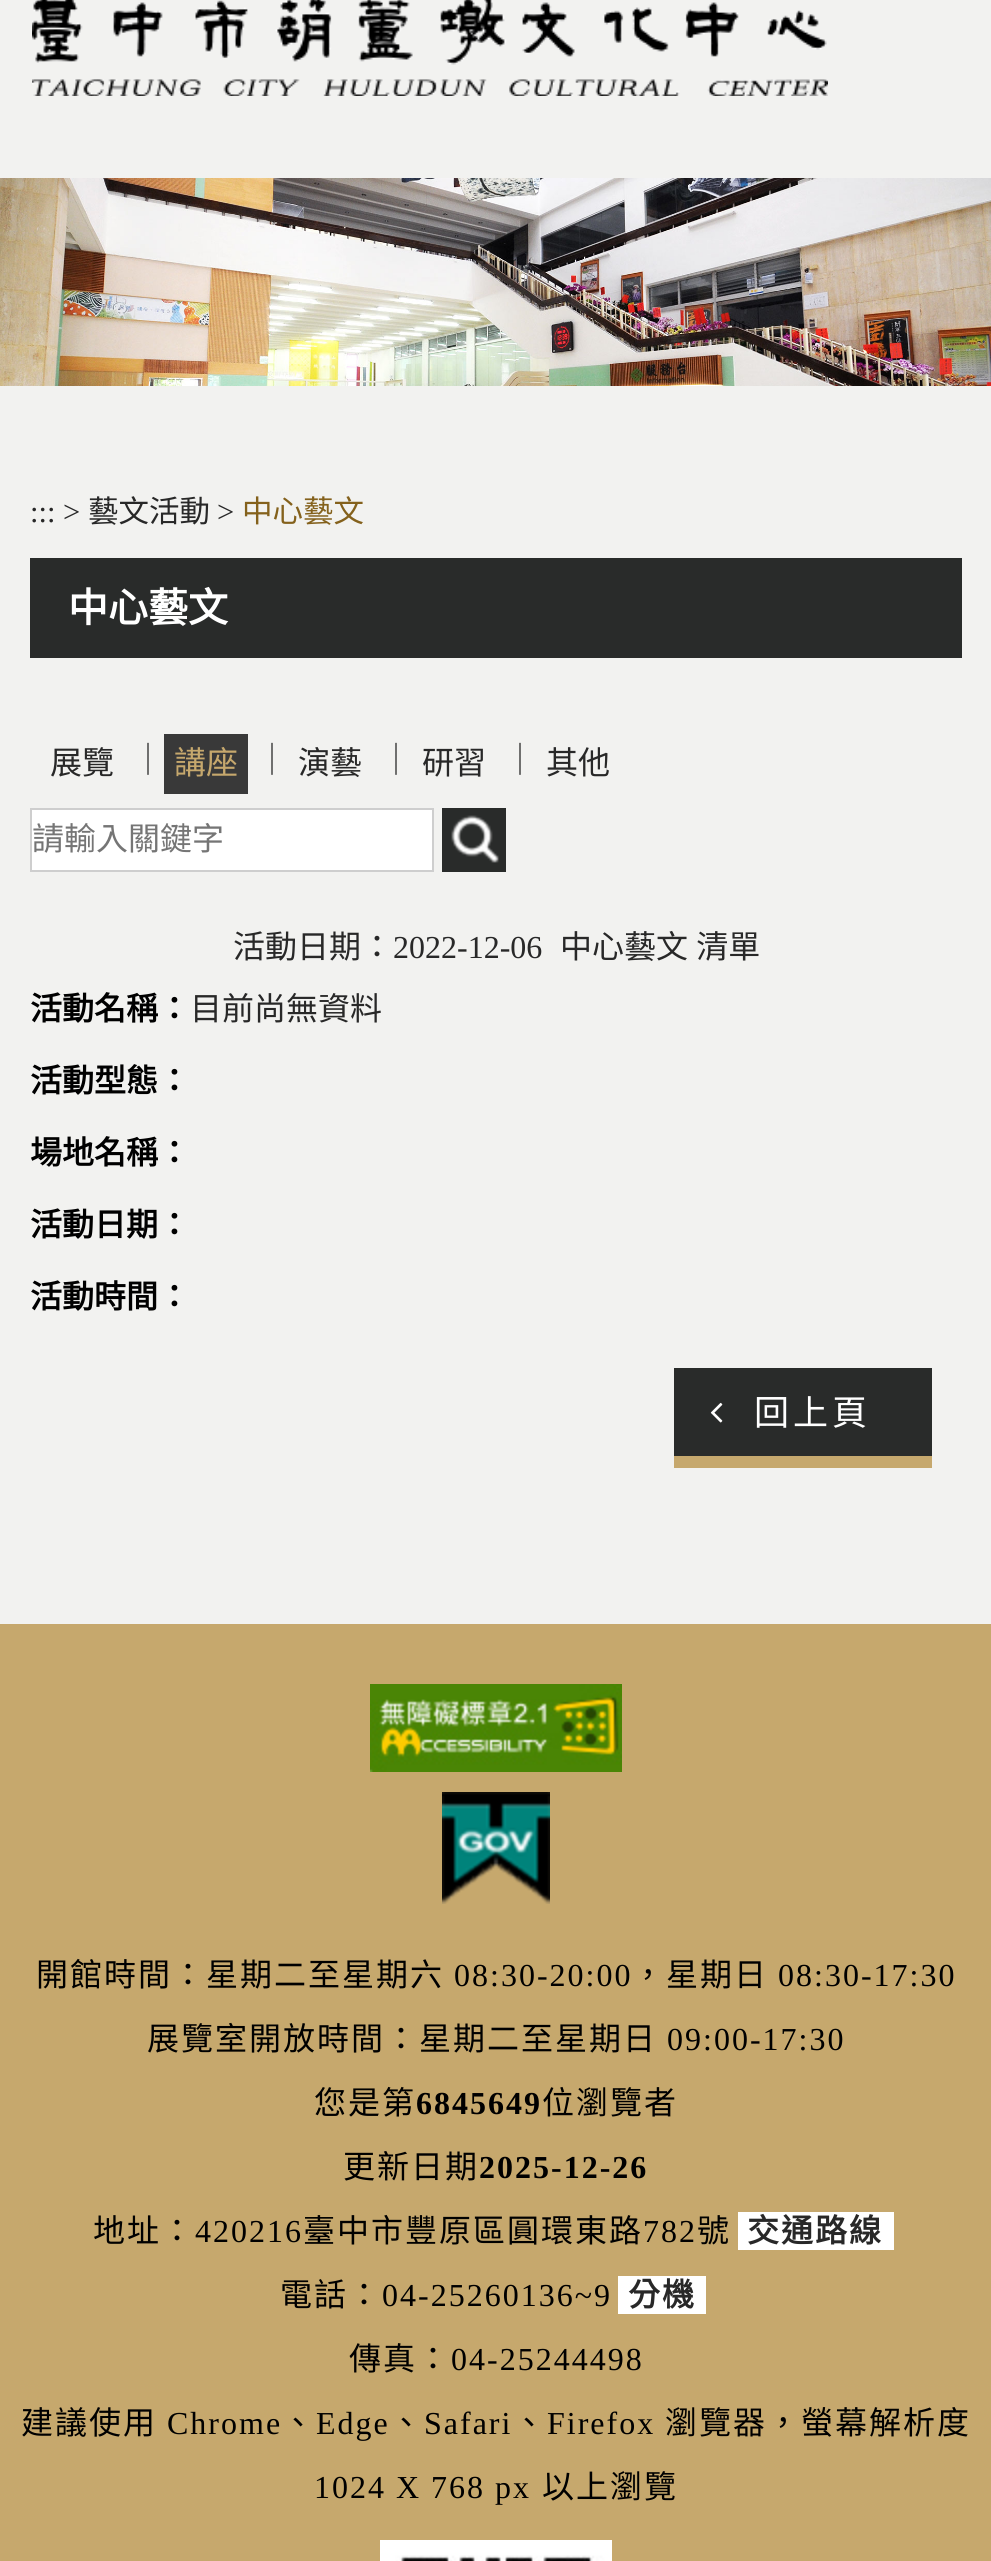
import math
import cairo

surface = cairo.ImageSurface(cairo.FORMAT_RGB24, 991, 2561)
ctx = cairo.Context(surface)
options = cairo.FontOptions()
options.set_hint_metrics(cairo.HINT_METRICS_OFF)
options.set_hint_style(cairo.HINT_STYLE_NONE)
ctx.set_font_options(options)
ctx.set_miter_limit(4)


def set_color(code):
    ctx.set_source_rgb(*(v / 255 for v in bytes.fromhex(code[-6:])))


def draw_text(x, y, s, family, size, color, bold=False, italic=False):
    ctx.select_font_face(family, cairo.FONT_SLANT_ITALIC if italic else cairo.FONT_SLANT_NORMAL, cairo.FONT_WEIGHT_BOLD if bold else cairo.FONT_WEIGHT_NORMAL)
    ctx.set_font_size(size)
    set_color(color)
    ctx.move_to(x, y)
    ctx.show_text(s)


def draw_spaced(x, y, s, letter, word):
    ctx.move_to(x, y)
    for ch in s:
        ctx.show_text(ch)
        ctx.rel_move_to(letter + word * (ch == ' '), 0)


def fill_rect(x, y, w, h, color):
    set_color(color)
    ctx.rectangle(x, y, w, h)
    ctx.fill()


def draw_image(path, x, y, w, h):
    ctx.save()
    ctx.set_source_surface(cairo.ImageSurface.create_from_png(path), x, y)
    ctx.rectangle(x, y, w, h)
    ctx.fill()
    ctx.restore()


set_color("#f2f2f0")
ctx.paint()
draw_image("assets/img1.png", 32, 0, 796, 96)
draw_image("assets/img2.png", 0, 178, 991, 208)
draw_text(30, 522, ":::", "Liberation Serif", 30.5, "#282828")
draw_text(63, 522, ">", "Liberation Serif", 30.5, "#282828")
draw_text(88, 522, "藝文活動", "Noto Sans CJK TC", 30.5, "#282828")
draw_text(217, 522, ">", "Liberation Serif", 30.5, "#282828")
draw_text(242, 522, "中心藝文", "Noto Sans CJK TC", 30.5, "#84611c")
fill_rect(30, 558, 932, 100, "#292b2a")
draw_text(68, 622, "中心藝文", "Noto Sans CJK TC", 40, "#ffffff", bold=True)
draw_text(50, 774, "展覽", "Noto Sans CJK TC", 32, "#282828")
draw_text(132, 771, "｜", "Noto Sans CJK TC", 32, "#313131")
fill_rect(164, 734, 84, 60, "#393939")
draw_text(174, 774, "講座", "Noto Sans CJK TC", 32, "#c6a86d")
draw_text(256, 771, "｜", "Noto Sans CJK TC", 32, "#313131")
draw_text(298, 774, "演藝", "Noto Sans CJK TC", 32, "#282828")
draw_text(380, 771, "｜", "Noto Sans CJK TC", 32, "#313131")
draw_text(422, 774, "研習", "Noto Sans CJK TC", 32, "#282828")
draw_text(504, 771, "｜", "Noto Sans CJK TC", 32, "#313131")
draw_text(546, 774, "其他", "Noto Sans CJK TC", 32, "#282828")
set_color("#ffffff")
ctx.rectangle(31, 809, 402, 62)
ctx.fill_preserve()
set_color("#cecece")
ctx.stroke()
draw_text(32, 850, "請輸入關鍵字", "Noto Sans CJK TC", 32, "#757575")
draw_image("assets/img3.png", 442, 808, 64, 64)
draw_text(233, 958, "活動日期：", "Noto Sans CJK TC", 32, "#282828")
draw_text(393, 958, "2022-12-06", "Liberation Serif", 32, "#282828")
ctx.select_font_face("Noto Sans CJK TC")
draw_spaced(560, 958, "中心藝文 清單", 0, 1)
draw_text(30, 1020, "活動名稱：", "Noto Sans CJK TC", 32, "#000000", bold=True)
draw_text(190, 1020, "目前尚無資料", "Noto Sans CJK TC", 32, "#282828")
draw_text(30, 1092, "活動型態：", "Noto Sans CJK TC", 32, "#000000", bold=True)
draw_text(30, 1164, "場地名稱：", "Noto Sans CJK TC", 32, "#000000", bold=True)
draw_text(30, 1236, "活動日期：", "Noto Sans CJK TC", 32, "#000000", bold=True)
draw_text(30, 1308, "活動時間：", "Noto Sans CJK TC", 32, "#000000", bold=True)
fill_rect(674, 1368, 258, 88, "#292b2a")
fill_rect(674, 1456, 258, 12, "#c6a86d")
draw_image("assets/img4.png", 710, 1402, 13, 21)
ctx.select_font_face("Noto Sans CJK TC")
ctx.set_font_size(35)
set_color("#ffffff")
draw_spaced(754, 1425, "回上頁", 4, 0)
fill_rect(0, 1624, 991, 937, "#c6a86d")
draw_image("assets/img5.png", 370, 1684, 252, 88)
draw_image("assets/img6.png", 442, 1792, 108, 112)
ctx.set_font_size(32)
set_color("#000000")
draw_spaced(36, 1986, "開館時間：星期二至星期六", 2, 0)
ctx.select_font_face("Liberation Serif")
draw_spaced(454, 1986, "08:30-20:00", 2, 0)
ctx.select_font_face("Noto Sans CJK TC")
draw_spaced(632, 1986, "，星期日", 2, 0)
ctx.select_font_face("Liberation Serif")
draw_spaced(778, 1986, "08:30-17:30", 2, 0)
ctx.select_font_face("Noto Sans CJK TC")
draw_spaced(147, 2050, "展覽室開放時間：星期二至星期日", 2, 0)
ctx.select_font_face("Liberation Serif")
draw_spaced(667, 2050, "09:00-17:30", 2, 0)
ctx.select_font_face("Noto Sans CJK TC")
draw_spaced(314, 2114, "您是第", 2, 0)
ctx.select_font_face("Liberation Serif", cairo.FONT_SLANT_NORMAL, cairo.FONT_WEIGHT_BOLD)
draw_spaced(416, 2114, "6845649", 2, 0)
ctx.select_font_face("Noto Sans CJK TC")
draw_spaced(542, 2114, "位瀏覽者", 2, 0)
draw_spaced(343, 2178, "更新日期", 2, 0)
ctx.select_font_face("Liberation Serif", cairo.FONT_SLANT_NORMAL, cairo.FONT_WEIGHT_BOLD)
draw_spaced(479, 2178, "2025-12-26", 2, 0)
ctx.select_font_face("Noto Sans CJK TC")
draw_spaced(93, 2242, "地址：", 2, 0)
ctx.select_font_face("Liberation Serif")
draw_spaced(195, 2242, "420216", 2, 0)
ctx.select_font_face("Noto Sans CJK TC")
draw_spaced(303, 2242, "臺中市豐原區圓環東路", 2, 0)
ctx.select_font_face("Liberation Serif")
draw_spaced(643, 2242, "782", 2, 0)
ctx.select_font_face("Noto Sans CJK TC")
draw_spaced(697, 2242, "號", 2, 0)
fill_rect(738, 2212, 156, 38, "#ffffff")
ctx.select_font_face("Noto Sans CJK TC", cairo.FONT_SLANT_NORMAL, cairo.FONT_WEIGHT_BOLD)
set_color("#282828")
draw_spaced(747, 2242, "交通路線", 2, 0)
ctx.select_font_face("Noto Sans CJK TC")
set_color("#000000")
draw_spaced(280, 2306, "電話：", 2, 0)
ctx.select_font_face("Liberation Serif")
draw_spaced(382, 2306, "04-25260136~9", 2, 0)
fill_rect(618, 2276, 88, 38, "#ffffff")
ctx.select_font_face("Noto Sans CJK TC", cairo.FONT_SLANT_NORMAL, cairo.FONT_WEIGHT_BOLD)
set_color("#282828")
draw_spaced(628, 2306, "分機", 2, 0)
ctx.select_font_face("Noto Sans CJK TC")
set_color("#000000")
draw_spaced(349, 2370, "傳真：", 2, 0)
ctx.select_font_face("Liberation Serif")
draw_spaced(451, 2370, "04-25244498", 2, 0)
ctx.select_font_face("Noto Sans CJK TC")
draw_spaced(21, 2434, "建議使用", 2, 0)
ctx.select_font_face("Liberation Serif")
draw_spaced(167, 2434, "Chrome", 2, 0)
ctx.select_font_face("Noto Sans CJK TC")
draw_spaced(282, 2434, "、", 2, 0)
ctx.select_font_face("Liberation Serif")
draw_spaced(316, 2434, "Edge", 2, 0)
ctx.select_font_face("Noto Sans CJK TC")
draw_spaced(390, 2434, "、", 2, 0)
ctx.select_font_face("Liberation Serif")
draw_spaced(424, 2434, "Safari", 2, 0)
ctx.select_font_face("Noto Sans CJK TC")
draw_spaced(513, 2434, "、", 2, 0)
ctx.select_font_face("Liberation Serif")
draw_spaced(547, 2434, "Firefox", 2, 0)
ctx.select_font_face("Noto Sans CJK TC")
draw_spaced(665, 2434, "瀏覽器，螢幕解析度", 2, 0)
ctx.select_font_face("Liberation Serif")
draw_spaced(314, 2498, "1024 X 768 px", 2, 0)
ctx.select_font_face("Noto Sans CJK TC")
draw_spaced(542, 2498, "以上瀏覽", 2, 0)
draw_image("assets/img7.png", 380, 2540, 232, 21)
surface.write_to_png("output.png")
